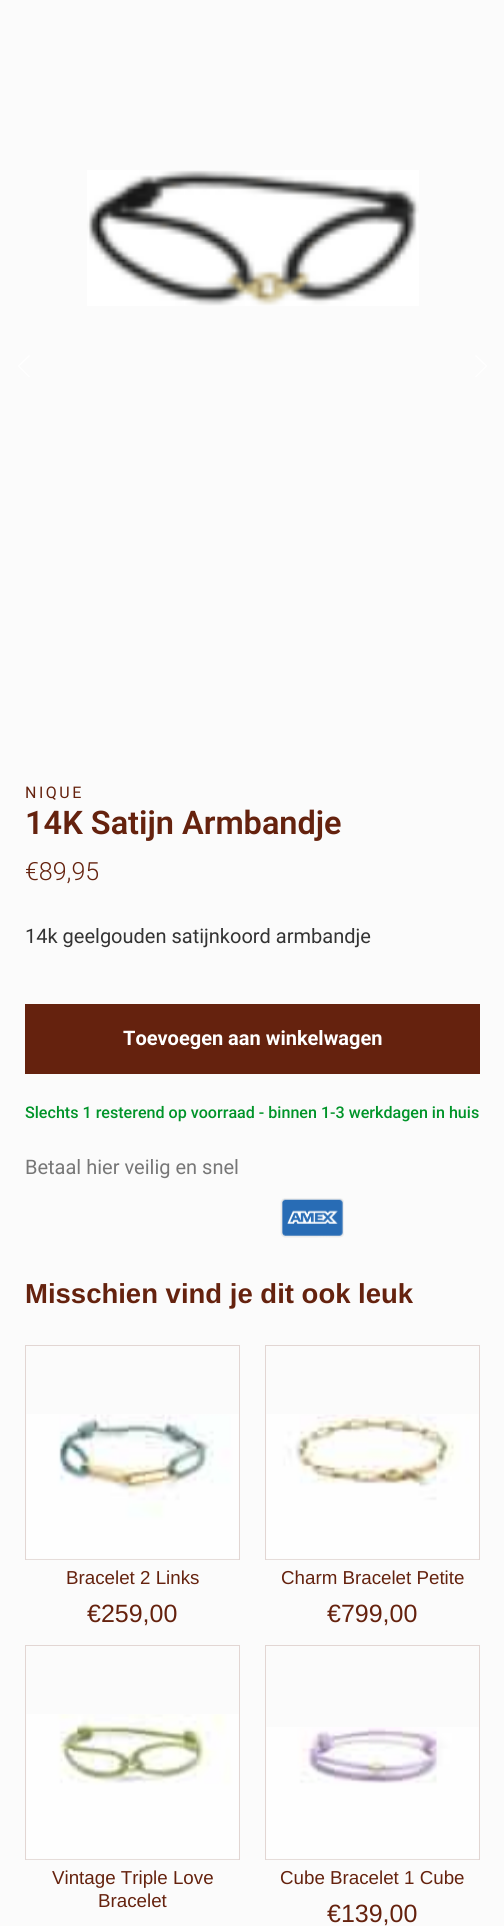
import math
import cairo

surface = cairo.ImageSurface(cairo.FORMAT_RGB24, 504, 1926)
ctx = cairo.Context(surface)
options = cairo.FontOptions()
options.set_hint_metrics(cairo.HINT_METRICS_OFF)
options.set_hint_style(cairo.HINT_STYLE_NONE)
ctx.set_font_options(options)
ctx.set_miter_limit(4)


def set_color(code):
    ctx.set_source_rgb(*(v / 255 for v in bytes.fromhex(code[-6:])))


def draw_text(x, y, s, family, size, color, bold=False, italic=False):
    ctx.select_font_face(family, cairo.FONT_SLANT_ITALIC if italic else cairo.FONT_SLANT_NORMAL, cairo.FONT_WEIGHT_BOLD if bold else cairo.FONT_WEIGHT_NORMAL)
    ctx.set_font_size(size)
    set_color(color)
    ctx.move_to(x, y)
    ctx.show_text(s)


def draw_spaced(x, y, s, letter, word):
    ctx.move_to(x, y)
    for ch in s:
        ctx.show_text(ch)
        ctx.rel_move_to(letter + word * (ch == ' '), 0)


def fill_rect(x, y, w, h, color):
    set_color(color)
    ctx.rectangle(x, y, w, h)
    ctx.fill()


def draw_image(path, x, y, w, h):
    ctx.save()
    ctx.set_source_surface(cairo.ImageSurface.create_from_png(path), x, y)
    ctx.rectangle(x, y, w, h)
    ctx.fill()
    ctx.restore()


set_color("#fbfbfb")
ctx.paint()
draw_image("assets/img1.png", 87, 170, 332, 136)
ctx.new_path()
ctx.move_to(18.5, 366)
ctx.line_to(29, 376.5)
ctx.move_to(29, 356)
ctx.line_to(18.5, 366)
set_color("#ffffff")
ctx.set_line_width(1.3)
ctx.set_line_cap(cairo.LINE_CAP_SQUARE)
ctx.stroke()
ctx.new_path()
ctx.move_to(476, 376.5)
ctx.line_to(486.5, 366)
ctx.move_to(486.5, 366)
ctx.line_to(476, 356)
ctx.stroke()
ctx.select_font_face("Roboto")
ctx.set_font_size(16)
set_color("#65220e")
draw_spaced(25, 798, "NIQUE", 2.5, 0)
draw_text(25, 834, "14K Satijn Armbandje", "Roboto SemiBold", 32.5, "#65220e")
draw_text(25, 880, "€89,95", "Roboto Light", 25, "#65220e")
draw_text(25, 943, "14k geelgouden satijnkoord armbandje", "Roboto", 20, "#333333")
fill_rect(25, 1004, 455, 70, "#65220e")
draw_text(123, 1045, "Toevoegen aan winkelwagen", "Roboto", 20, "#ffffff", bold=True)
draw_text(25, 1118, "Slechts 1 resterend op voorraad - binnen 1-3 werkdagen in huis", "Roboto Medium", 16.1, "#009429")
draw_text(25, 1174, "Betaal hier veilig en snel", "Roboto", 20, "#777777")
draw_image("assets/img2.png", 280, 1198, 64, 40)
draw_text(25, 1303, "Misschien vind je dit ook leuk", "Liberation Sans", 27.5, "#65220e", bold=True)
ctx.rectangle(25.5, 1345.5, 214, 214)
set_color("#e2d6d3")
ctx.set_line_width(1)
ctx.set_line_cap(cairo.LINE_CAP_BUTT)
ctx.stroke()
draw_image("assets/img3.png", 26, 1414, 213, 146)
draw_text(66, 1584, "Bracelet 2 Links", "Liberation Sans", 18.75, "#65220e")
draw_text(87, 1622, "€259,00", "Liberation Sans", 25, "#65220e")
ctx.rectangle(265.5, 1345.5, 214, 214)
set_color("#e2d6d3")
ctx.stroke()
draw_image("assets/img4.png", 266, 1414, 213, 146)
draw_text(281, 1584, "Charm Bracelet Petite", "Liberation Sans", 18.75, "#65220e")
draw_text(327, 1622, "€799,00", "Liberation Sans", 25, "#65220e")
ctx.rectangle(25.5, 1645.5, 214, 214)
set_color("#e2d6d3")
ctx.stroke()
draw_image("assets/img5.png", 26, 1714, 213, 146)
draw_text(52, 1884, "Vintage Triple Love", "Liberation Sans", 18.75, "#65220e")
draw_text(98, 1907, "Bracelet", "Liberation Sans", 18.75, "#65220e")
ctx.rectangle(265.5, 1645.5, 214, 214)
set_color("#e2d6d3")
ctx.stroke()
draw_image("assets/img6.png", 266, 1727, 213, 133)
draw_text(280, 1884, "Cube Bracelet 1 Cube", "Liberation Sans", 18.75, "#65220e")
draw_text(327, 1922, "€139,00", "Liberation Sans", 25, "#65220e")
surface.write_to_png("output.png")
